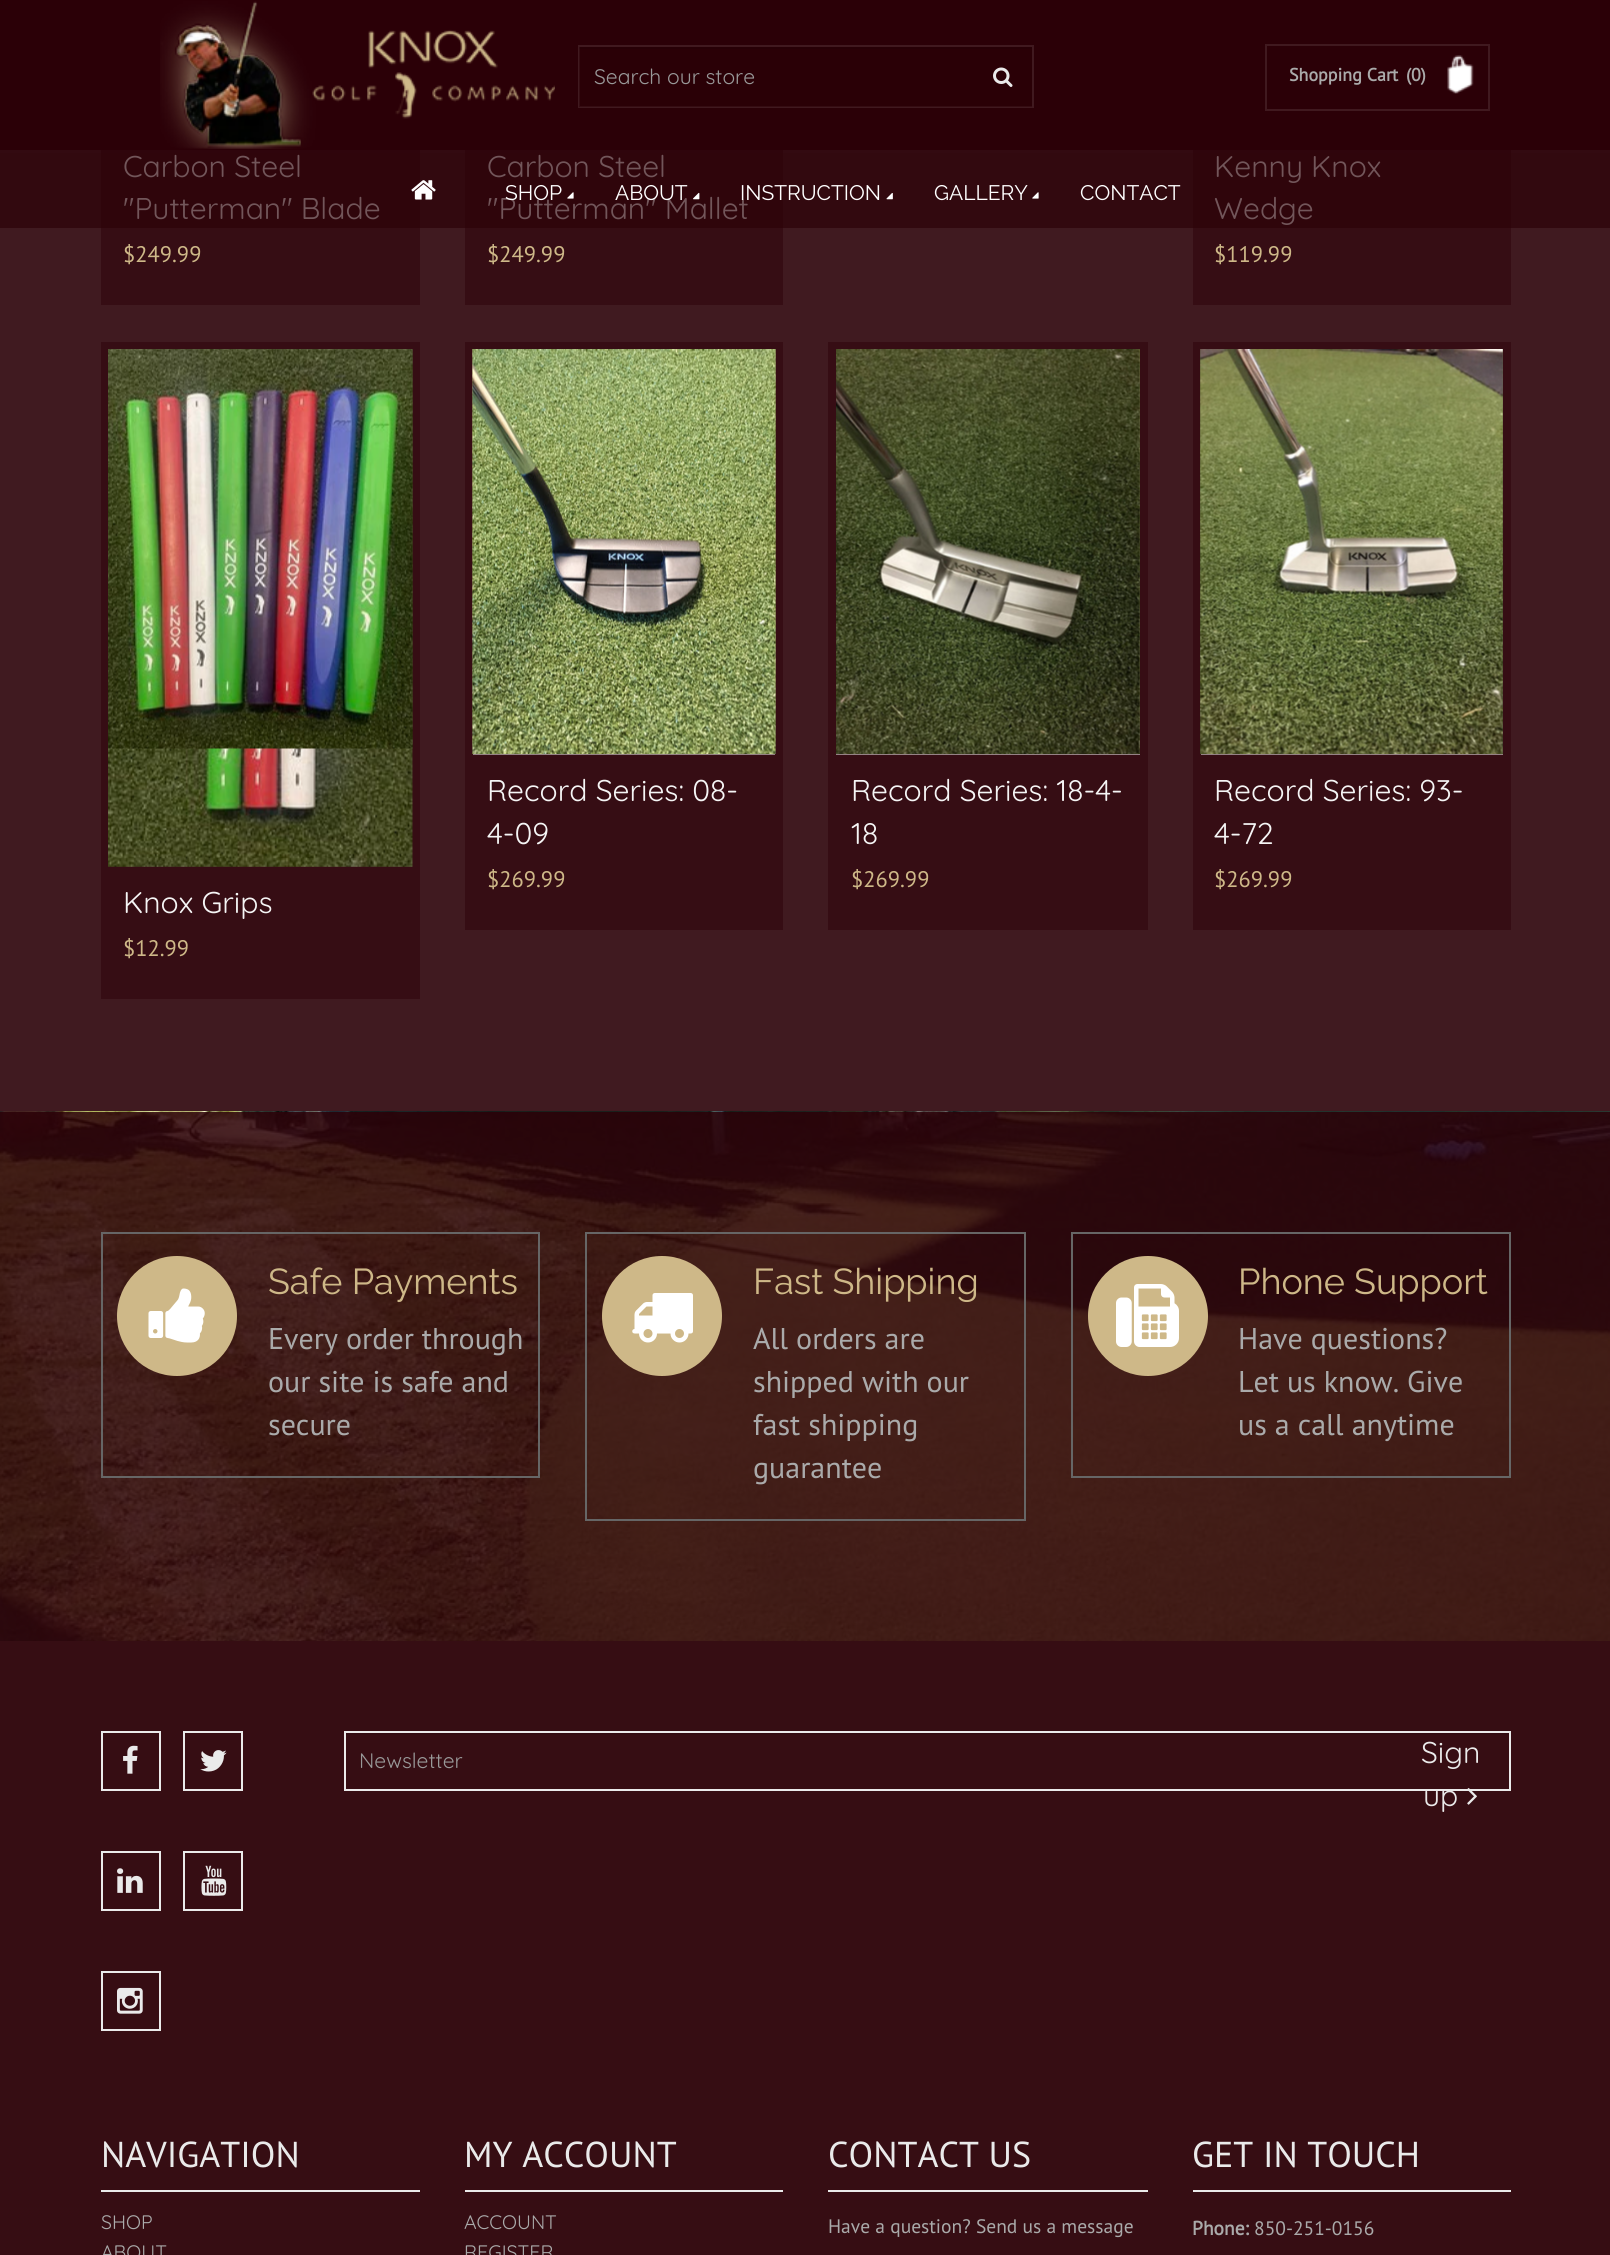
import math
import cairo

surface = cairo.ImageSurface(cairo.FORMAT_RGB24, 1610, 2255)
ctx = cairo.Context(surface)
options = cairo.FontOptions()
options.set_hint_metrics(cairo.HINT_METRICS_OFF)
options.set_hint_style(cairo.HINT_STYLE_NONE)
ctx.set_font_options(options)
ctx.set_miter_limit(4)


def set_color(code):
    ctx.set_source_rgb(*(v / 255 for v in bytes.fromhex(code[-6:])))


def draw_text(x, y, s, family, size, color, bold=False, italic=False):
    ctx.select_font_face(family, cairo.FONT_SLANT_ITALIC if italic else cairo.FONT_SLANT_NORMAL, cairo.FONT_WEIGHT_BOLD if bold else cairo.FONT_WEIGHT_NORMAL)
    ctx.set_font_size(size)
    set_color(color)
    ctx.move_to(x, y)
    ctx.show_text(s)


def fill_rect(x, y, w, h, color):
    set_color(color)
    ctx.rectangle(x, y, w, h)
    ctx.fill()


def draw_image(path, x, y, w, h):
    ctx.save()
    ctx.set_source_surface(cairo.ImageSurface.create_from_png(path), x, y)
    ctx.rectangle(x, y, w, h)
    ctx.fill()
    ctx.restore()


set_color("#401a20")
ctx.paint()
ctx.rectangle(105, -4, 311, 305)
set_color("#360d14")
ctx.set_line_width(8)
ctx.stroke()
ctx.rectangle(469, -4, 310, 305)
ctx.stroke()
ctx.rectangle(1197, -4, 310, 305)
ctx.stroke()
fill_rect(0, 0, 1610, 150, "#2b0007")
fill_rect(109, 150, 303, 147, "#360d14")
fill_rect(473, 150, 302, 147, "#360d14")
fill_rect(1201, 150, 302, 147, "#360d14")
ctx.set_source_rgba(0.169, 0, 0.027, 0.6)
ctx.rectangle(0, 150, 1610, 3)
ctx.fill()
draw_image("assets/img1.png", 160, 1, 395, 148)
ctx.rectangle(579, 46, 454, 61)
set_color("#40191f")
ctx.set_line_width(2)
ctx.stroke()
ctx.set_source_rgba(0.169, 0, 0.027, 0.5)
ctx.rectangle(579, 47, 453, 60)
ctx.fill()
ctx.set_source_rgba(0, 0, 0, 0.07)
ctx.rectangle(579, 47, 453, 2)
ctx.fill()
draw_text(594, 84, "Search our store", "Quicksand", 21, "#999999")
draw_image("assets/img2.png", 993, 67, 20, 20)
draw_image("assets/img3.png", 1447, 55, 27, 39)
ctx.rectangle(1266, 45, 223, 65)
set_color("#40191f")
ctx.stroke()
draw_text(1289, 81, "Shopping Cart", "PT Sans", 18, "#aaaaaa", bold=True)
draw_text(1406, 81, "(0)", "PT Sans", 18, "#aaaaaa", bold=True)
draw_text(123, 177, "Carbon Steel", "Quicksand", 30, "#f5f5f5")
draw_text(123, 219, "\"Putterman\" Blade", "Quicksand", 30, "#f5f5f5")
draw_text(487, 177, "Carbon Steel", "Quicksand", 30, "#f5f5f5")
draw_text(487, 219, "\"Putterman\" Mallet", "Quicksand", 30, "#f5f5f5")
draw_text(1214, 177, "Kenny Knox", "Quicksand", 30, "#f5f5f5")
draw_text(1214, 219, "Wedge", "Quicksand", 30, "#f5f5f5")
ctx.set_source_rgba(0.169, 0, 0.027, 0.65)
ctx.rectangle(0, 153, 1610, 75)
ctx.fill()
draw_image("assets/img4.png", 411, 180, 25, 20)
draw_text(505, 200, "SHOP", "Raleway Thin", 21, "#ffffff")
draw_image("assets/img5.png", 567, 192, 7, 7)
draw_text(615, 200, "ABOUT", "Raleway Thin", 21, "#ffffff")
draw_image("assets/img6.png", 693, 192, 7, 8)
draw_text(740, 200, "INSTRUCTION", "Raleway Thin", 21, "#ffffff")
draw_image("assets/img7.png", 886, 193, 7, 7)
draw_text(934, 200, "GALLERY", "Raleway Thin", 21, "#ffffff")
draw_image("assets/img8.png", 1032, 192, 7, 7)
draw_text(1080, 200, "CONTACT", "Raleway Thin", 21, "#ffffff")
draw_text(123, 262, "$249.99", "PT Sans", 22.5, "#ceb888")
draw_text(487, 262, "$249.99", "PT Sans", 22.5, "#ceb888")
draw_text(1214, 262, "$119.99", "PT Sans", 22.5, "#ceb888")
fill_rect(473, 754, 302, 1, "#958285")
ctx.rectangle(469, 346, 310, 580)
set_color("#360d14")
ctx.set_line_width(8)
ctx.stroke()
draw_image("assets/img9.png", 472, 349, 304, 405)
draw_image("assets/img10.png", 472, 349, 304, 405)
fill_rect(473, 755, 302, 167, "#360d14")
draw_text(487, 801, "Record Series: 08-", "Quicksand", 30, "#f5f5f5")
draw_text(487, 844, "4-09", "Quicksand", 30, "#f5f5f5")
draw_text(487, 887, "$269.99", "PT Sans", 22.5, "#ceb888")
fill_rect(836, 350, 304, 405, "#958285")
ctx.rectangle(832, 346, 312, 580)
set_color("#360d14")
ctx.stroke()
draw_image("assets/img12.png", 1139, 349, 1, 405)
draw_image("assets/img11.png", 836, 349, 304, 405)
fill_rect(836, 755, 304, 167, "#360d14")
draw_text(851, 801, "Record Series: 18-4-", "Quicksand", 30, "#f5f5f5")
draw_text(851, 844, "18", "Quicksand", 30, "#f5f5f5")
draw_text(851, 887, "$269.99", "PT Sans", 22.5, "#ceb888")
fill_rect(1201, 350, 302, 405, "#958285")
ctx.rectangle(1197, 346, 310, 580)
set_color("#360d14")
ctx.stroke()
draw_image("assets/img13.png", 1200, 349, 303, 405)
draw_image("assets/img14.png", 1200, 349, 303, 405)
fill_rect(1201, 755, 302, 167, "#360d14")
draw_text(1214, 801, "Record Series: 93-", "Quicksand", 30, "#f5f5f5")
draw_text(1214, 844, "4-72", "Quicksand", 30, "#f5f5f5")
draw_text(1214, 887, "$269.99", "PT Sans", 22.5, "#ceb888")
ctx.rectangle(105, 346, 311, 649)
set_color("#360d14")
ctx.stroke()
draw_image("assets/img15.png", 108, 349, 305, 518)
draw_image("assets/img16.png", 108, 349, 305, 400)
fill_rect(109, 867, 303, 124, "#360d14")
draw_text(123, 913, "Knox Grips", "Quicksand", 30, "#f5f5f5")
draw_text(123, 956, "$12.99", "PT Sans", 22.5, "#ceb888")
draw_image("assets/img17.png", 0, 1111, 1610, 530)
ctx.rectangle(102, 1233, 437, 244)
set_color("#666666")
ctx.set_line_width(2)
ctx.stroke()
set_color("#ceb888")
ctx.arc(177, 1316, 59, 0, 2 * math.pi)
ctx.fill_preserve()
ctx.stroke()
draw_image("assets/img18.png", 148, 1288, 57, 55)
draw_text(268, 1294, "Safe Payments", "Raleway Thin", 36, "#ceb888")
draw_text(268, 1349, "Every order through", "PT Sans", 30, "#aaaaaa")
draw_text(268, 1392, "our site is safe and", "PT Sans", 30, "#aaaaaa")
draw_text(268, 1435, "secure", "PT Sans", 30, "#aaaaaa")
ctx.rectangle(586, 1233, 439, 287)
set_color("#666666")
ctx.stroke()
set_color("#ceb888")
ctx.arc(662, 1316, 59, 0, 2 * math.pi)
ctx.fill_preserve()
ctx.stroke()
draw_image("assets/img19.png", 632, 1293, 61, 50)
draw_text(753, 1294, "Fast Shipping", "Raleway Thin", 36, "#ceb888")
draw_text(753, 1349, "All orders are", "PT Sans", 30, "#aaaaaa")
draw_text(753, 1392, "shipped with our", "PT Sans", 30, "#aaaaaa")
draw_text(753, 1435, "fast shipping", "PT Sans", 30, "#aaaaaa")
draw_text(753, 1478, "guarantee", "PT Sans", 30, "#aaaaaa")
ctx.rectangle(1072, 1233, 438, 244)
set_color("#666666")
ctx.stroke()
set_color("#ceb888")
ctx.arc(1148, 1316, 59, 0, 2 * math.pi)
ctx.fill_preserve()
ctx.stroke()
draw_image("assets/img20.png", 1116, 1284, 63, 63)
draw_text(1238, 1294, "Phone Support", "Raleway Thin", 36, "#ceb888")
draw_text(1238, 1349, "Have questions?", "PT Sans", 30, "#aaaaaa")
draw_text(1238, 1392, "Let us know. Give", "PT Sans", 30, "#aaaaaa")
draw_text(1238, 1435, "us a call anytime", "PT Sans", 30, "#aaaaaa")
fill_rect(0, 1641, 1610, 614, "#360d13")
ctx.rectangle(102, 1732, 58, 58)
set_color("#eaeaea")
ctx.stroke()
draw_image("assets/img21.png", 123, 1745, 15, 29)
ctx.rectangle(184, 1732, 58, 58)
ctx.stroke()
draw_image("assets/img22.png", 200, 1750, 27, 22)
ctx.rectangle(102, 1852, 58, 58)
ctx.stroke()
draw_image("assets/img23.png", 117, 1868, 26, 25)
ctx.rectangle(184, 1852, 58, 58)
ctx.stroke()
draw_image("assets/img24.png", 201, 1865, 26, 31)
ctx.rectangle(102, 1972, 58, 58)
ctx.stroke()
draw_image("assets/img25.png", 117, 1987, 26, 27)
fill_rect(345, 1733, 1164, 2, "#320c12")
ctx.rectangle(345, 1732, 1165, 58)
set_color("#eaeaea")
ctx.stroke()
draw_text(359, 1768, "Newsletter", "Quicksand", 21, "#999999")
draw_text(1421, 1763, "Sign", "Quicksand", 30, "#eaeaea")
draw_text(1423, 1806, "up", "Quicksand", 30, "#eaeaea")
draw_image("assets/img26.png", 1467, 1788, 10, 17)
fill_rect(101, 2190, 319, 2, "#eaeaea")
draw_text(101, 2167, "NAVIGATION", "PT Sans", 36, "#eaeaea")
draw_text(101, 2229, "SHOP", "Quicksand", 19.5, "#aaaaaa")
draw_text(101, 2259, "ABOUT", "Quicksand", 19.5, "#aaaaaa")
fill_rect(465, 2190, 318, 2, "#eaeaea")
draw_text(464, 2167, "MY ACCOUNT", "PT Sans", 36, "#eaeaea")
draw_text(464, 2229, "ACCOUNT", "Quicksand", 19.5, "#aaaaaa")
draw_text(464, 2259, "REGISTER", "Quicksand", 19.5, "#aaaaaa")
fill_rect(828, 2190, 320, 2, "#eaeaea")
draw_text(828, 2167, "CONTACT US", "PT Sans", 36, "#eaeaea")
draw_text(828, 2233, "Have a question? Send us a message", "PT Sans", 19.5, "#aaaaaa")
fill_rect(1193, 2190, 318, 2, "#eaeaea")
draw_text(1192, 2167, "GET IN TOUCH", "PT Sans", 36, "#eaeaea")
draw_text(1192, 2235, "Phone:", "PT Sans", 19.5, "#aaaaaa", bold=True)
draw_text(1254, 2235, "850-251-0156", "PT Sans", 19.5, "#aaaaaa")
surface.write_to_png("output.png")
